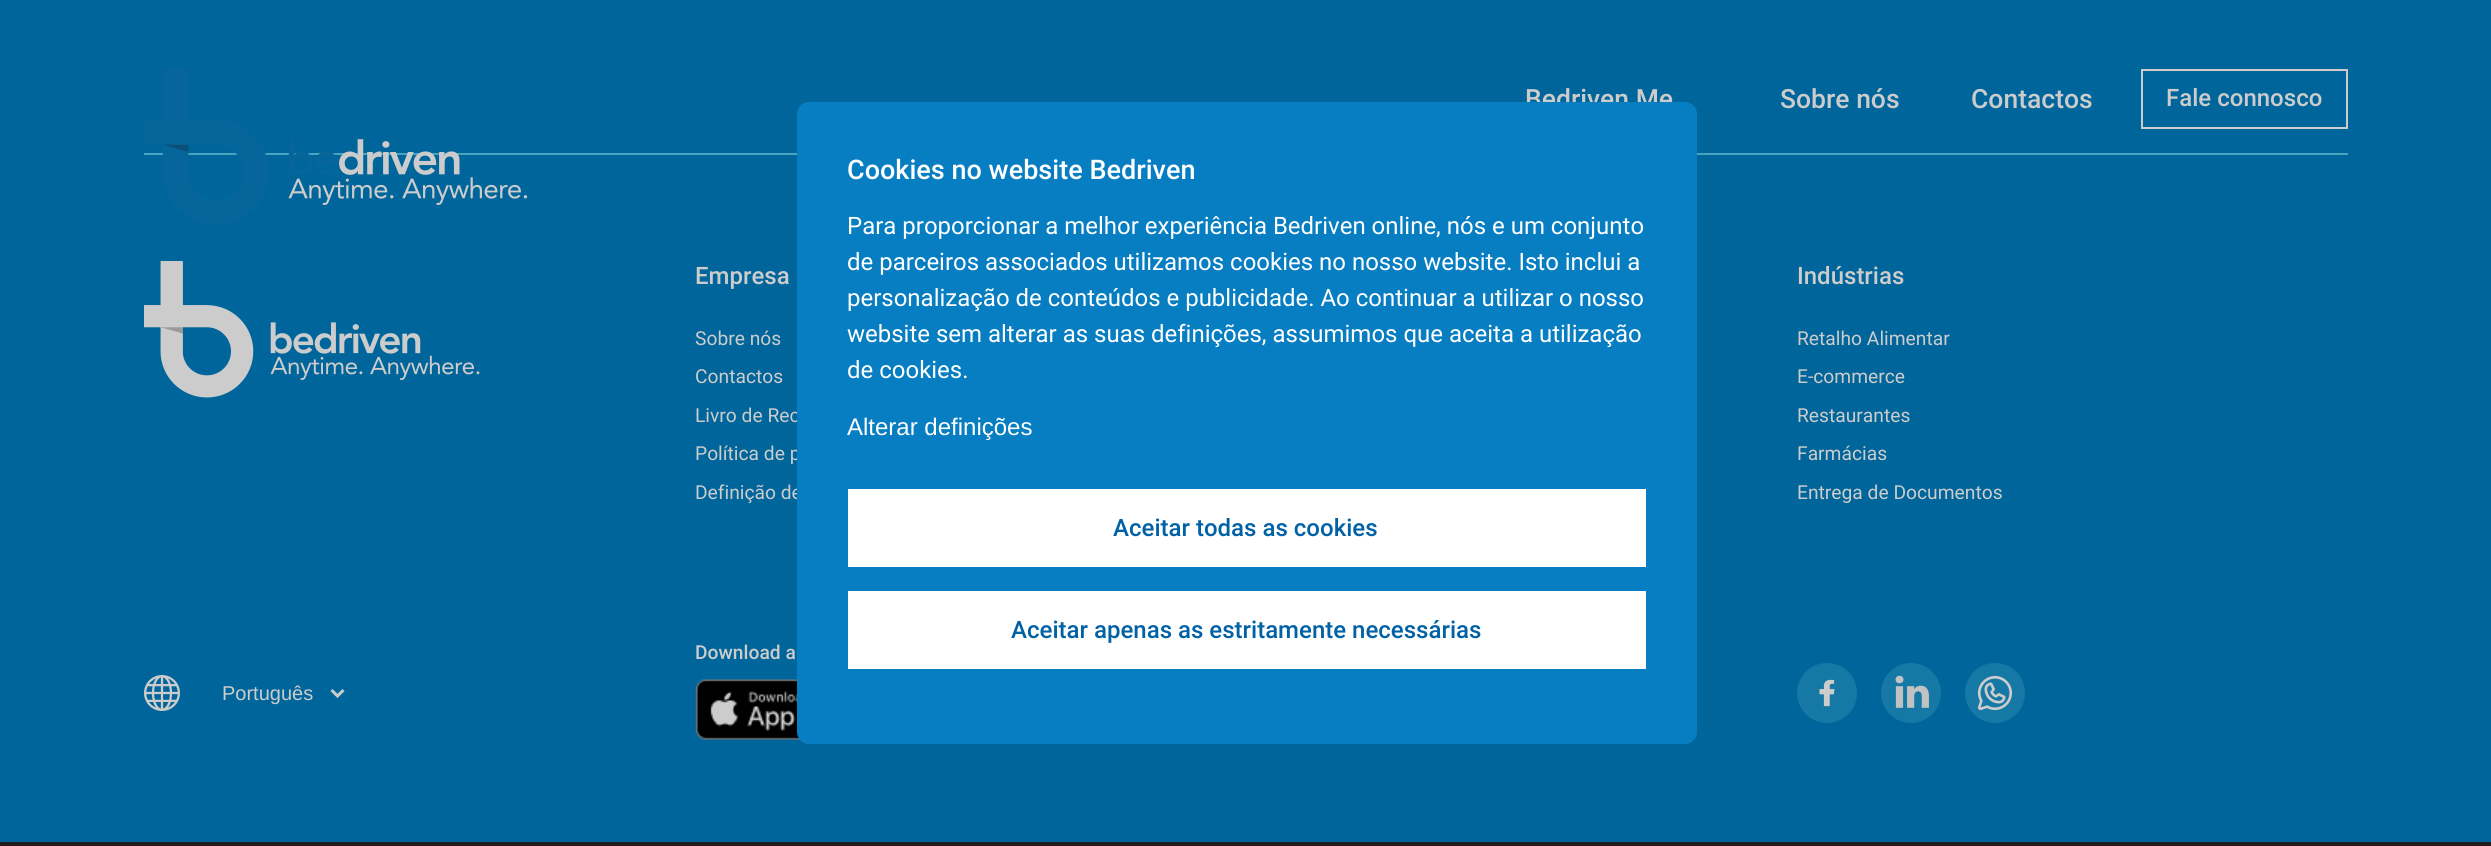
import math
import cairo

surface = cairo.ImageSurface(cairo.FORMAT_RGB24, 2491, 846)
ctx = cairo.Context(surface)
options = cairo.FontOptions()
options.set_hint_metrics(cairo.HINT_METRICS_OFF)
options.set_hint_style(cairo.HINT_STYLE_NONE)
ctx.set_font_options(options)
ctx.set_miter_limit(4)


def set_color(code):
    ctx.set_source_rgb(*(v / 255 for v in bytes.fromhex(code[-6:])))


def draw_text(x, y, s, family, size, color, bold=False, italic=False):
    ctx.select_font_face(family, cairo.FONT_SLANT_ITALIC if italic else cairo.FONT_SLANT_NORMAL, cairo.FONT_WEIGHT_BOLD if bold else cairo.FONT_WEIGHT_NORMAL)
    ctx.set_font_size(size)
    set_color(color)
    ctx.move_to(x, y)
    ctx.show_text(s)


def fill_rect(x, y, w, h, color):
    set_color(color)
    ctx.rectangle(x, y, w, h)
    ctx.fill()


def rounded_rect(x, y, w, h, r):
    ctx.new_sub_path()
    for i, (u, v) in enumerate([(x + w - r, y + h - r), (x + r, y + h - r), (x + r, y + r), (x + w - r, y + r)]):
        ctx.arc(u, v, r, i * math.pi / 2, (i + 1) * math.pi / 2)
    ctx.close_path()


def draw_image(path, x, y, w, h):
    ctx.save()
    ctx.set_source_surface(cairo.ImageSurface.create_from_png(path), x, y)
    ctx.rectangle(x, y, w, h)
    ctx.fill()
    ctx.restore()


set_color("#00659a")
ctx.paint()
fill_rect(144, 153, 2204, 2, "#4ba4bd")
draw_image("assets/img1.png", 144, 69, 384, 156)
draw_text(1525, 108, "Bedriven Me", "Roboto Medium", 26.5, "#cccccc")
draw_text(1780, 108, "Sobre nós", "Roboto Medium", 26.5, "#cccccc")
draw_text(1971, 108, "Contactos", "Roboto Medium", 26.5, "#cccccc")
ctx.rectangle(2142, 70, 205, 58)
ctx.stroke()
draw_text(2166, 106, "Fale connosco", "Roboto Medium", 24, "#cccccc")
draw_text(695, 422, "Livro de Rec", "Roboto", 19.25, "#cccccc")
draw_text(695, 460, "Política de p", "Roboto", 19.25, "#cccccc")
draw_text(695, 499, "Definição de", "Roboto", 19.25, "#cccccc")
draw_image("assets/img3.png", 695, 679, 106, 61)
set_color("#077ec2")
rounded_rect(798.5, 103.5, 897, 639, 10.5)
ctx.fill_preserve()
ctx.set_line_width(3)
ctx.stroke()
draw_text(847, 179, "Cookies no website Bedriven", "Roboto Medium", 27, "#ffffff")
draw_text(847, 234, "Para proporcionar a melhor experiência Bedriven online, nós e um conjunto", "Roboto", 24, "#ffffff")
draw_text(847, 270, "de parceiros associados utilizamos cookies no nosso website. Isto inclui a", "Roboto", 24, "#ffffff")
draw_text(847, 306, "personalização de conteúdos e publicidade. Ao continuar a utilizar o nosso", "Roboto", 24, "#ffffff")
draw_text(847, 342, "website sem alterar as suas definições, assumimos que aceita a utilização", "Roboto", 24, "#ffffff")
draw_text(847, 378, "de cookies.", "Roboto", 24, "#ffffff")
draw_text(847, 435, "Alterar definições", "Liberation Sans", 24, "#ffffff")
fill_rect(848, 489, 798, 78, "#ffffff")
draw_text(1113, 536, "Aceitar todas as cookies", "Roboto Medium", 24, "#0061a5")
fill_rect(848, 591, 798, 78, "#ffffff")
draw_text(1011, 638, "Aceitar apenas as estritamente necessárias", "Roboto Medium", 24, "#0061a5")
draw_image("assets/img2.png", 144, 261, 336, 137)
draw_text(695, 284, "Empresa", "Roboto Medium", 24, "#cccccc")
draw_text(695, 345, "Sobre nós", "Roboto", 19.25, "#cccccc")
draw_text(695, 383, "Contactos", "Roboto", 19.25, "#cccccc")
draw_text(1797, 284, "Indústrias", "Roboto Medium", 24, "#cccccc")
draw_text(1797, 345, "Retalho Alimentar", "Roboto", 19.25, "#cccccc")
draw_text(1797, 383, "E-commerce", "Roboto", 19.25, "#cccccc")
draw_text(1797, 422, "Restaurantes", "Roboto", 19.25, "#cccccc")
draw_text(1797, 460, "Farmácias", "Roboto", 19.25, "#cccccc")
draw_text(1797, 499, "Entrega de Documentos", "Roboto", 19.25, "#cccccc")
draw_text(695, 659, "Download a", "Roboto Medium", 19.25, "#cccccc")
draw_image("assets/img4.png", 144, 675, 36, 36)
ctx.new_path()
ctx.move_to(331.5, 690)
ctx.line_to(337.5, 696)
ctx.line_to(343.5, 690)
ctx.stroke()
draw_text(222, 700, "Português", "Liberation Sans", 20, "#cccccc")
set_color("#1678a4")
ctx.new_path()
ctx.arc(1827, 693, 30, 0, 2 * math.pi)
ctx.fill()
draw_image("assets/img5.png", 1819, 679, 16, 28)
ctx.arc(1911, 693, 30, 0, 2 * math.pi)
ctx.fill()
draw_image("assets/img6.png", 1895, 675, 34, 33)
ctx.arc(1995, 693, 30, 0, 2 * math.pi)
ctx.fill()
draw_image("assets/img7.png", 1977, 675, 35, 36)
fill_rect(0, 842, 2491, 4, "#1f1f1f")
surface.write_to_png("output.png")
